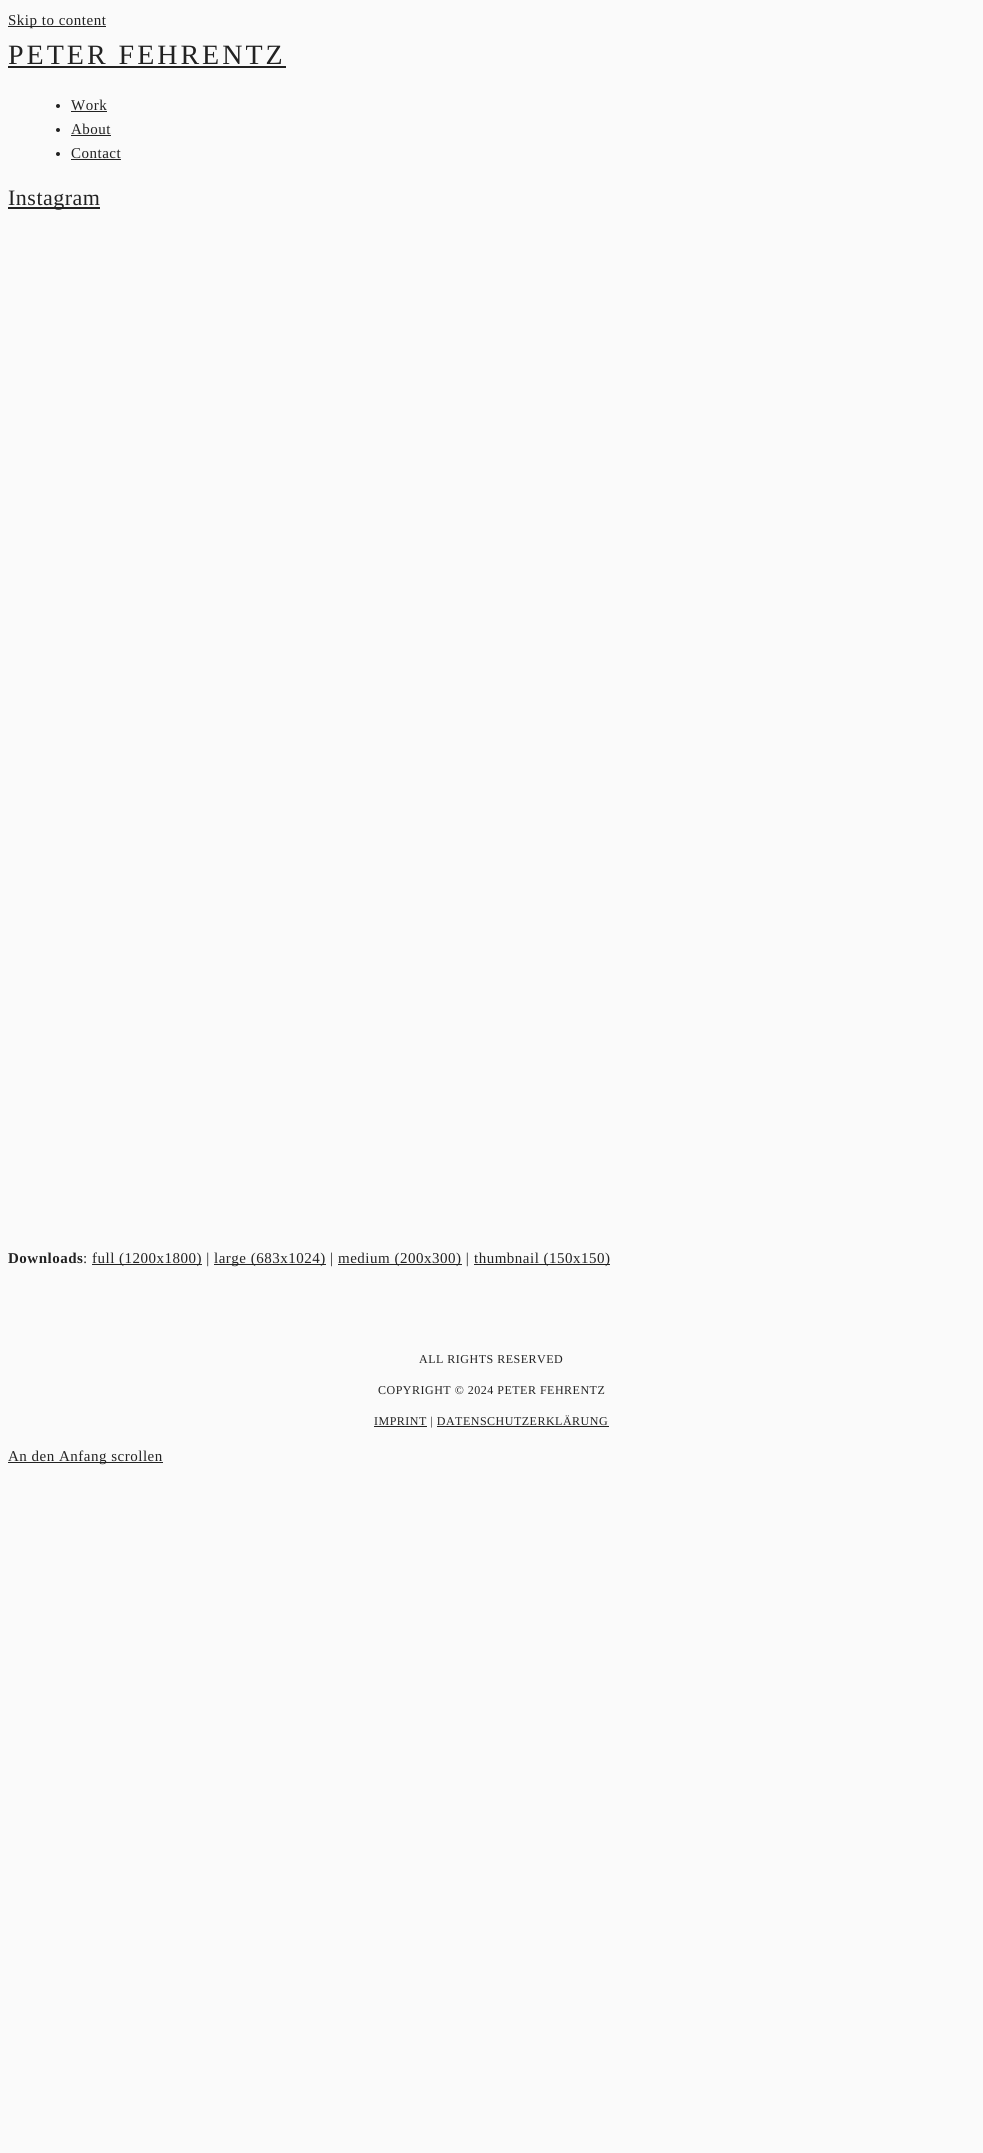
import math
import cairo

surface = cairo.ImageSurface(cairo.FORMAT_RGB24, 983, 2153)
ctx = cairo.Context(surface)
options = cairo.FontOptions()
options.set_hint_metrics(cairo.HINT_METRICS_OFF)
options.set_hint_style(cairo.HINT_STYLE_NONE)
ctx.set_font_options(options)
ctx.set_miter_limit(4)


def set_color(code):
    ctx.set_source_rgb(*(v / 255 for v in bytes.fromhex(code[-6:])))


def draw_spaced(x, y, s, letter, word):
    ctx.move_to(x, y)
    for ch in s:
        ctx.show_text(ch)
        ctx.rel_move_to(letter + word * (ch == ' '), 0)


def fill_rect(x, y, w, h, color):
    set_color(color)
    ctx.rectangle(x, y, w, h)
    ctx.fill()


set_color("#fafafa")
ctx.paint()
fill_rect(8, 26, 98, 1, "#222222")
ctx.select_font_face("Liberation Serif")
ctx.set_font_size(15)
draw_spaced(8, 25, "Skip to content", 0.5, 0)
ctx.set_font_size(28)
draw_spaced(8, 64, "PETER FEHRENTZ", 3, 0)
fill_rect(8, 66, 278, 2, "#222222")
ctx.new_path()
ctx.arc(58, 106, 2, 0, 2 * math.pi)
ctx.fill()
ctx.set_font_size(15)
draw_spaced(71, 110, "Work", 0.5, 0)
fill_rect(71, 111, 36, 1, "#222222")
ctx.new_path()
ctx.arc(58, 130, 2, 0, 2 * math.pi)
ctx.fill()
draw_spaced(71, 134, "About", 0.5, 0)
fill_rect(71, 135, 40, 1, "#222222")
ctx.new_path()
ctx.arc(58, 154, 2, 0, 2 * math.pi)
ctx.fill()
draw_spaced(71, 158, "Contact", 0.5, 0)
fill_rect(71, 159, 50, 1, "#222222")
fill_rect(8, 207, 92, 2, "#222222")
ctx.set_font_size(22)
draw_spaced(8, 205, "Instagram", 0.5, 0)
ctx.select_font_face("Liberation Serif", cairo.FONT_SLANT_NORMAL, cairo.FONT_WEIGHT_BOLD)
ctx.set_font_size(15)
draw_spaced(8, 1263, "Downloads", 0.5, 0)
ctx.select_font_face("Liberation Serif")
draw_spaced(83, 1263, ":", 0.5, 0)
fill_rect(92, 1264, 110, 1, "#222222")
draw_spaced(92, 1263, "full (1200x1800) |", 0.5, 0)
fill_rect(214, 1264, 112, 1, "#222222")
draw_spaced(214, 1263, "large (683x1024) |", 0.5, 0)
fill_rect(338, 1264, 124, 1, "#222222")
draw_spaced(338, 1263, "medium (200x300) |", 0.5, 0)
fill_rect(474, 1264, 136, 1, "#222222")
draw_spaced(474, 1263, "thumbnail (150x150)", 0.5, 0)
ctx.set_font_size(12)
draw_spaced(419, 1363, "ALL RIGHTS RESERVED", 0.5, 0)
draw_spaced(378, 1394, "COPYRIGHT © 2024 PETER FEHRENTZ", 0.5, 0)
fill_rect(374, 1426, 53, 1, "#222222")
draw_spaced(374, 1425, "IMPRINT | DATENSCHUTZERKLÄRUNG", 0.5, 0)
fill_rect(437, 1426, 172, 1, "#222222")
fill_rect(8, 1462, 155, 1, "#222222")
ctx.set_font_size(15)
draw_spaced(8, 1461, "An den Anfang scrollen", 0.5, 0)
surface.write_to_png("output.png")
